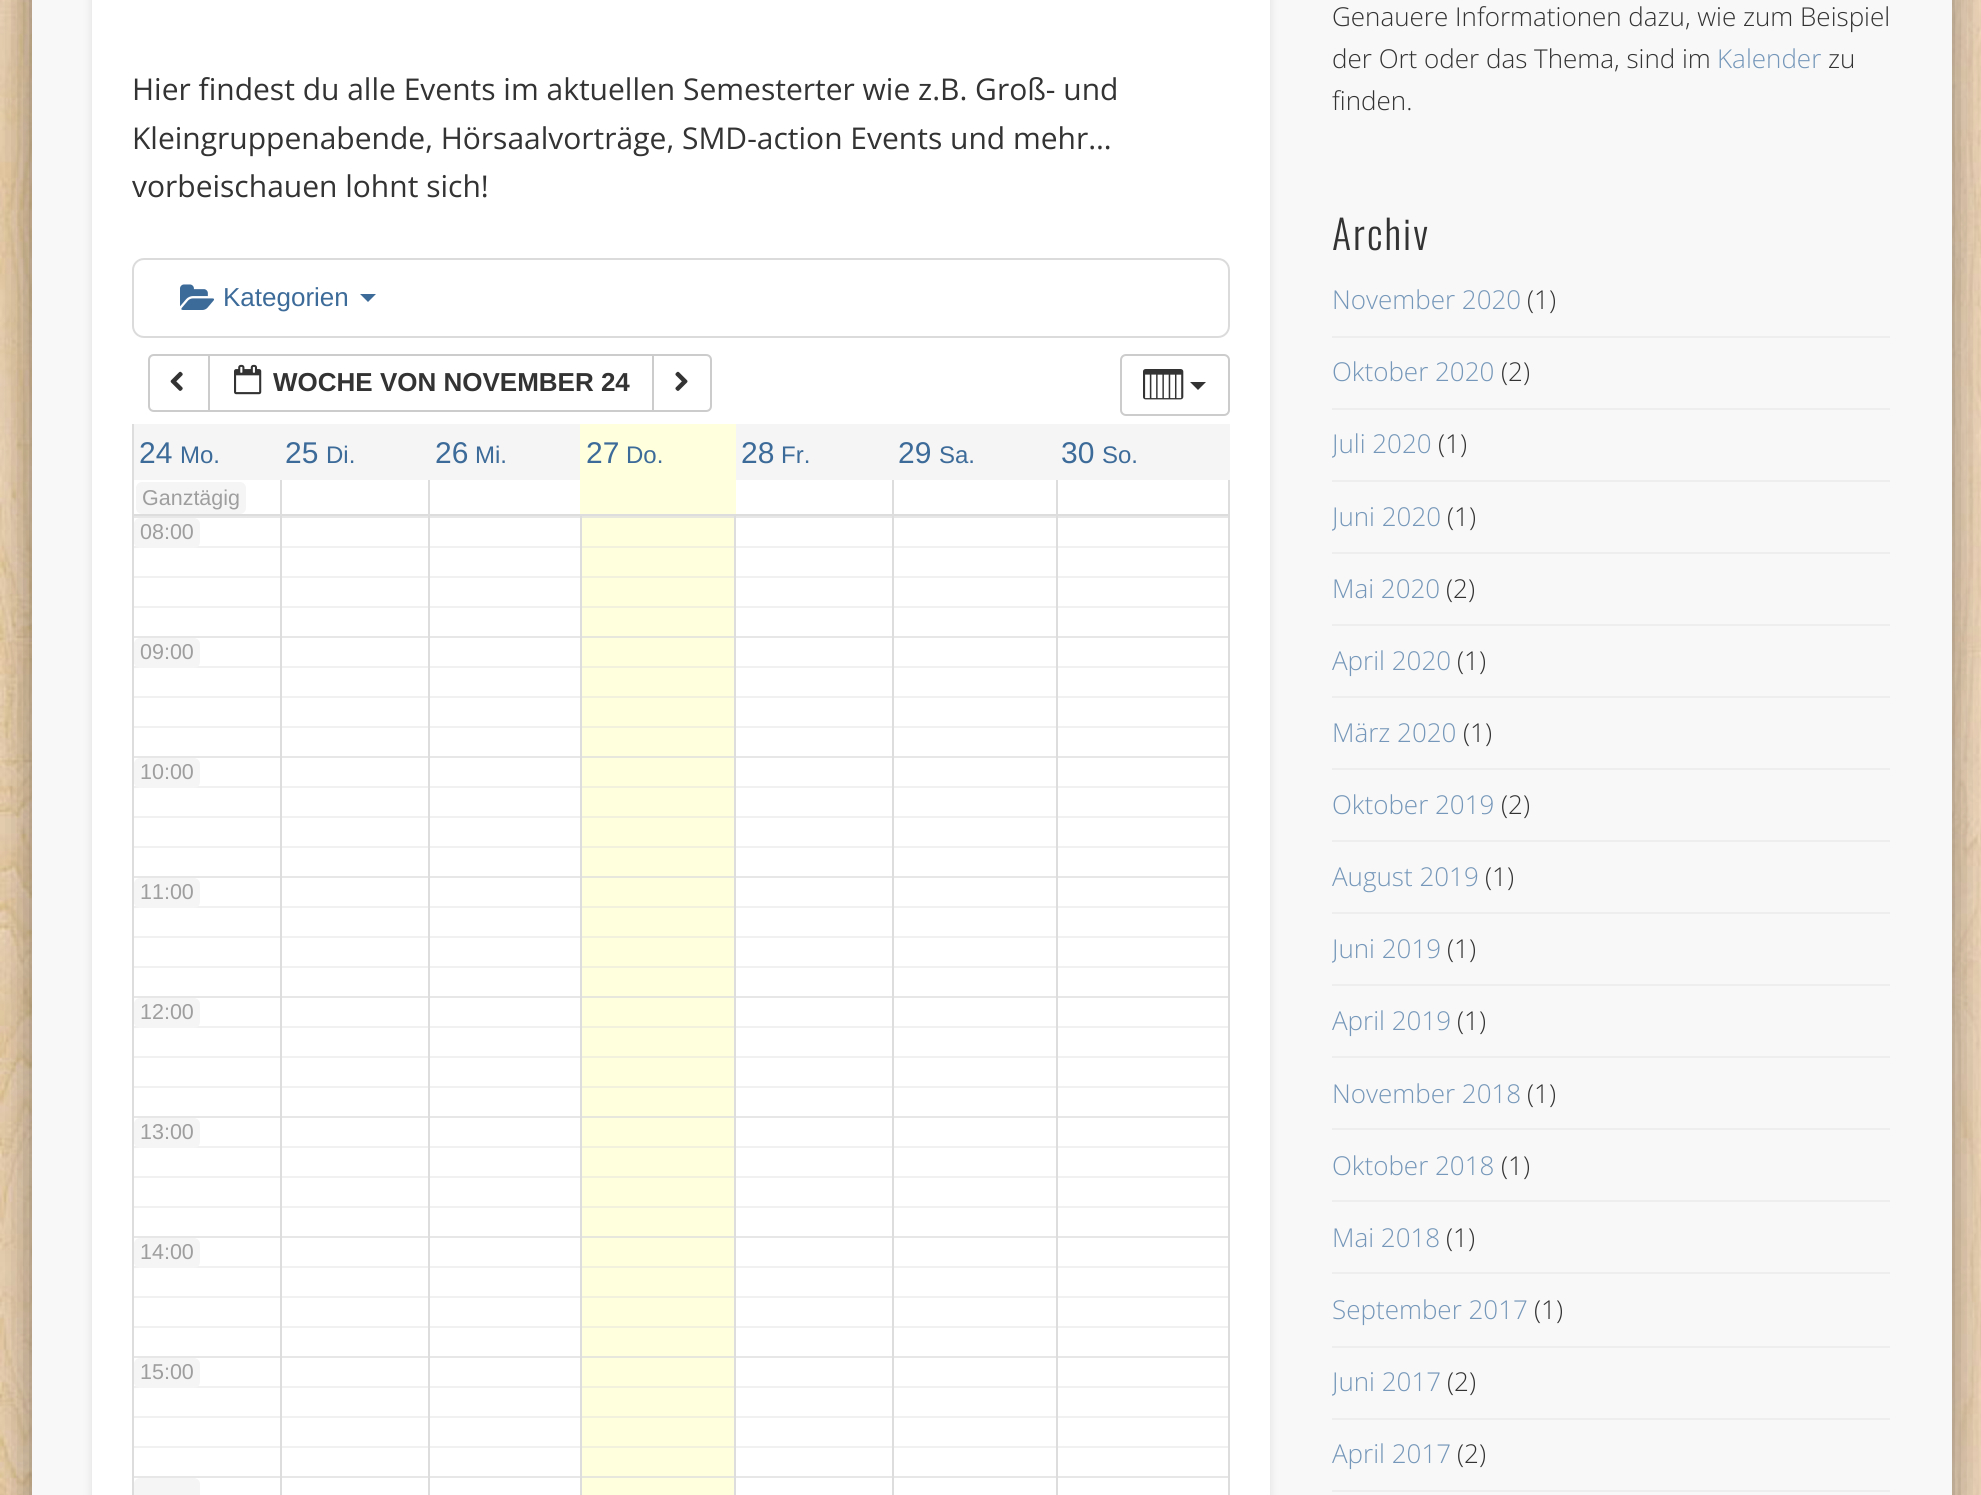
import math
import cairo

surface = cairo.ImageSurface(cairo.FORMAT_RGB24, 1981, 1495)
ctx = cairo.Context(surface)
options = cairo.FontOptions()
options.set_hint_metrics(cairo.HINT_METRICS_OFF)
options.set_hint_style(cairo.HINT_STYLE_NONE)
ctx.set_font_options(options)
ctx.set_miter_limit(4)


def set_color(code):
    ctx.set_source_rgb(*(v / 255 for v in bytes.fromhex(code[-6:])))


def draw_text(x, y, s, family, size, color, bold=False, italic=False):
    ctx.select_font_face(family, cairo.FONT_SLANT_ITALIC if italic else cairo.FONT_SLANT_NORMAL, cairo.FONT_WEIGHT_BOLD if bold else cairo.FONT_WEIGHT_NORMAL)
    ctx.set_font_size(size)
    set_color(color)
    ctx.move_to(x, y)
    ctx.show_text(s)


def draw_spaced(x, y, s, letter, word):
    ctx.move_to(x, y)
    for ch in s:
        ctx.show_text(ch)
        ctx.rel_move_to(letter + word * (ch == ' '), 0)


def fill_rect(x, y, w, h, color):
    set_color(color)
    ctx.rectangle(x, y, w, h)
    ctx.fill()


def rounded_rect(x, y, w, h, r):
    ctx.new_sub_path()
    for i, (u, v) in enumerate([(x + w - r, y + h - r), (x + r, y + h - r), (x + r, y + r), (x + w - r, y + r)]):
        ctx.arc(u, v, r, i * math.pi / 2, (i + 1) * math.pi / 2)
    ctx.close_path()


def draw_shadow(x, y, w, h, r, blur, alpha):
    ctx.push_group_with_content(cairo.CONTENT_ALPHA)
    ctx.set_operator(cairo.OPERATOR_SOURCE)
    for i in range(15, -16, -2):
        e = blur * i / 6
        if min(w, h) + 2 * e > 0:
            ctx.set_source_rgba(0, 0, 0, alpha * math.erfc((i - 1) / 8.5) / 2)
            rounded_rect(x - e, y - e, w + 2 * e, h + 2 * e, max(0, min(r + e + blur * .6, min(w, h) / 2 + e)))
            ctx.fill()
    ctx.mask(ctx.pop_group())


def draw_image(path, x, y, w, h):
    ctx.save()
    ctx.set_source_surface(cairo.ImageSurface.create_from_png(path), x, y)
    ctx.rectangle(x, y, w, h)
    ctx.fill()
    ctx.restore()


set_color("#ffffff")
ctx.paint()
draw_image("assets/img1.png", 0, 0, 1981, 1495)
set_color("#000000")
draw_shadow(32, -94, 1920, 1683, 40, 18, 0.4)
fill_rect(32, 0, 1920, 1495, "#f8f8f8")
set_color("#000000")
draw_shadow(92, -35, 1178, 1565, 20, 5, 0.1)
fill_rect(92, 0, 1178, 1495, "#ffffff")
draw_text(132, 100, "Hier findest du alle Events im aktuellen Semesterter wie z.B. Groß- und", "Open Sans", 30, "#333333")
draw_text(132, 149, "Kleingruppenabende, Hörsaalvorträge, SMD-action Events und mehr…", "Open Sans", 30, "#333333")
draw_text(132, 197, "vorbeischauen lohnt sich!", "Open Sans", 30, "#333333")
rounded_rect(133, 259, 1096, 78, 11)
set_color("#dbdbdb")
ctx.stroke()
draw_image("assets/img2.png", 180, 284, 35, 26)
draw_text(223, 306, "Kategorien", "Liberation Sans", 26, "#3d6b99")
ctx.new_path()
ctx.move_to(360, 294)
ctx.line_to(376, 294)
ctx.line_to(368, 302)
ctx.close_path()
ctx.fill()
ctx.new_path()
ctx.move_to(154, 355)
ctx.line_to(209, 355)
ctx.line_to(209, 411)
ctx.line_to(154, 411)
ctx.curve_to(151, 411, 149, 409, 149, 406)
ctx.line_to(149, 360)
ctx.curve_to(149, 357, 151, 355, 154, 355)
ctx.close_path()
set_color("#cccccc")
ctx.stroke()
draw_image("assets/img3.png", 170, 371, 13, 20)
ctx.rectangle(209, 355, 444, 56)
ctx.stroke()
draw_image("assets/img4.png", 234, 364, 28, 31)
draw_text(273, 391, "WOCHE VON NOVEMBER 24", "Liberation Sans", 26, "#333333", bold=True)
set_color("#ffffff")
ctx.new_path()
ctx.move_to(653, 355)
ctx.line_to(706, 355)
ctx.curve_to(709, 355, 711, 357, 711, 360)
ctx.line_to(711, 406)
ctx.curve_to(711, 409, 709, 411, 706, 411)
ctx.line_to(653, 411)
ctx.close_path()
ctx.fill_preserve()
set_color("#cccccc")
ctx.stroke()
draw_image("assets/img5.png", 675, 371, 13, 20)
rounded_rect(1121, 355, 108, 60, 5)
ctx.stroke()
draw_image("assets/img6.png", 1143, 369, 41, 31)
set_color("#333333")
ctx.new_path()
ctx.move_to(1190, 382)
ctx.line_to(1206, 382)
ctx.line_to(1198, 390)
ctx.close_path()
ctx.fill()
fill_rect(1228, 480, 2, 1015, "#dddddd")
fill_rect(132, 424, 2, 1071, "#dddddd")
fill_rect(1056, 514, 174, 2, "#dddddd")
fill_rect(1056, 478, 2, 1017, "#dddddd")
fill_rect(892, 514, 166, 2, "#dddddd")
fill_rect(892, 478, 2, 1017, "#dddddd")
fill_rect(428, 514, 466, 2, "#dddddd")
fill_rect(428, 478, 2, 1017, "#dddddd")
fill_rect(280, 514, 150, 2, "#dddddd")
fill_rect(280, 478, 2, 1017, "#dddddd")
fill_rect(134, 424, 446, 56, "#f5f5f5")
draw_text(139, 463, "24", "Liberation Sans", 30, "#3d6b99")
draw_text(180, 463, "Mo.", "Liberation Sans", 24, "#3d6b99")
draw_text(285, 463, "25", "Liberation Sans", 30, "#3d6b99")
draw_text(326, 463, "Di.", "Liberation Sans", 24, "#3d6b99")
draw_text(435, 463, "26", "Liberation Sans", 30, "#3d6b99")
draw_text(475, 463, "Mi.", "Liberation Sans", 24, "#3d6b99")
fill_rect(580, 424, 156, 90, "#ffffdd")
draw_text(586, 463, "27", "Liberation Sans", 30, "#3d6b99")
draw_text(626, 463, "Do.", "Liberation Sans", 24, "#3d6b99")
fill_rect(736, 424, 494, 56, "#f5f5f5")
draw_text(741, 463, "28", "Liberation Sans", 30, "#3d6b99")
draw_text(781, 463, "Fr.", "Liberation Sans", 24, "#3d6b99")
draw_text(898, 463, "29", "Liberation Sans", 30, "#3d6b99")
draw_text(939, 463, "Sa.", "Liberation Sans", 24, "#3d6b99")
draw_text(1061, 463, "30", "Liberation Sans", 30, "#3d6b99")
draw_text(1102, 463, "So.", "Liberation Sans", 24, "#3d6b99")
fill_rect(132, 514, 150, 2, "#dddddd")
set_color("#f5f5f5")
rounded_rect(136, 482, 110, 32, 6)
ctx.fill()
draw_text(142, 505, "Ganztägig", "Liberation Sans", 21.5, "#9e9e9e")
fill_rect(582, 516, 152, 979, "#ffffdd")
fill_rect(580, 516, 2, 979, "#dddddd")
fill_rect(734, 516, 2, 979, "#dddddd")
ctx.set_source_rgba(0.867, 0.867, 0.867, 0.7)
ctx.rectangle(132, 516, 1098, 2)
ctx.fill()
ctx.set_source_rgba(0.867, 0.867, 0.867, 0.4)
ctx.rectangle(132, 546, 1098, 2)
ctx.fill()
set_color("#f5f5f5")
rounded_rect(134, 518, 66, 30, 6)
ctx.fill()
draw_text(140, 539, "08:00", "Liberation Sans", 21.5, "#9e9e9e")
ctx.set_source_rgba(0.867, 0.867, 0.867, 0.4)
ctx.rectangle(132, 576, 1098, 2)
ctx.fill()
ctx.rectangle(132, 606, 1098, 2)
ctx.fill()
ctx.set_source_rgba(0.867, 0.867, 0.867, 0.7)
ctx.rectangle(132, 636, 1098, 2)
ctx.fill()
ctx.set_source_rgba(0.867, 0.867, 0.867, 0.4)
ctx.rectangle(132, 666, 1098, 2)
ctx.fill()
set_color("#f5f5f5")
rounded_rect(134, 638, 66, 30, 6)
ctx.fill()
draw_text(140, 659, "09:00", "Liberation Sans", 21.5, "#9e9e9e")
ctx.set_source_rgba(0.867, 0.867, 0.867, 0.4)
ctx.rectangle(132, 696, 1098, 2)
ctx.fill()
ctx.rectangle(132, 726, 1098, 2)
ctx.fill()
ctx.set_source_rgba(0.867, 0.867, 0.867, 0.7)
ctx.rectangle(132, 756, 1098, 2)
ctx.fill()
ctx.set_source_rgba(0.867, 0.867, 0.867, 0.4)
ctx.rectangle(132, 786, 1098, 2)
ctx.fill()
set_color("#f5f5f5")
rounded_rect(134, 758, 66, 30, 6)
ctx.fill()
draw_text(140, 779, "10:00", "Liberation Sans", 21.5, "#9e9e9e")
ctx.set_source_rgba(0.867, 0.867, 0.867, 0.4)
ctx.rectangle(132, 816, 1098, 2)
ctx.fill()
ctx.rectangle(132, 846, 1098, 2)
ctx.fill()
ctx.set_source_rgba(0.867, 0.867, 0.867, 0.7)
ctx.rectangle(132, 876, 1098, 2)
ctx.fill()
ctx.set_source_rgba(0.867, 0.867, 0.867, 0.4)
ctx.rectangle(132, 906, 1098, 2)
ctx.fill()
set_color("#f5f5f5")
rounded_rect(134, 878, 66, 30, 6)
ctx.fill()
draw_text(140, 899, "11:00", "Liberation Sans", 21.5, "#9e9e9e")
ctx.set_source_rgba(0.867, 0.867, 0.867, 0.4)
ctx.rectangle(132, 936, 1098, 2)
ctx.fill()
ctx.rectangle(132, 966, 1098, 2)
ctx.fill()
ctx.set_source_rgba(0.867, 0.867, 0.867, 0.7)
ctx.rectangle(132, 996, 1098, 2)
ctx.fill()
ctx.set_source_rgba(0.867, 0.867, 0.867, 0.4)
ctx.rectangle(132, 1026, 1098, 2)
ctx.fill()
set_color("#f5f5f5")
rounded_rect(134, 998, 66, 30, 6)
ctx.fill()
draw_text(140, 1019, "12:00", "Liberation Sans", 21.5, "#9e9e9e")
ctx.set_source_rgba(0.867, 0.867, 0.867, 0.4)
ctx.rectangle(132, 1056, 1098, 2)
ctx.fill()
ctx.rectangle(132, 1086, 1098, 2)
ctx.fill()
ctx.set_source_rgba(0.867, 0.867, 0.867, 0.7)
ctx.rectangle(132, 1116, 1098, 2)
ctx.fill()
ctx.set_source_rgba(0.867, 0.867, 0.867, 0.4)
ctx.rectangle(132, 1146, 1098, 2)
ctx.fill()
set_color("#f5f5f5")
rounded_rect(134, 1118, 66, 30, 6)
ctx.fill()
draw_text(140, 1139, "13:00", "Liberation Sans", 21.5, "#9e9e9e")
ctx.set_source_rgba(0.867, 0.867, 0.867, 0.4)
ctx.rectangle(132, 1176, 1098, 2)
ctx.fill()
ctx.rectangle(132, 1206, 1098, 2)
ctx.fill()
ctx.set_source_rgba(0.867, 0.867, 0.867, 0.7)
ctx.rectangle(132, 1236, 1098, 2)
ctx.fill()
ctx.set_source_rgba(0.867, 0.867, 0.867, 0.4)
ctx.rectangle(132, 1266, 1098, 2)
ctx.fill()
set_color("#f5f5f5")
rounded_rect(134, 1238, 66, 30, 6)
ctx.fill()
draw_text(140, 1259, "14:00", "Liberation Sans", 21.5, "#9e9e9e")
ctx.set_source_rgba(0.867, 0.867, 0.867, 0.4)
ctx.rectangle(132, 1296, 1098, 2)
ctx.fill()
ctx.rectangle(132, 1326, 1098, 2)
ctx.fill()
ctx.set_source_rgba(0.867, 0.867, 0.867, 0.7)
ctx.rectangle(132, 1356, 1098, 2)
ctx.fill()
ctx.set_source_rgba(0.867, 0.867, 0.867, 0.4)
ctx.rectangle(132, 1386, 1098, 2)
ctx.fill()
set_color("#f5f5f5")
rounded_rect(134, 1358, 66, 30, 6)
ctx.fill()
draw_text(140, 1379, "15:00", "Liberation Sans", 21.5, "#9e9e9e")
ctx.set_source_rgba(0.867, 0.867, 0.867, 0.4)
ctx.rectangle(132, 1416, 1098, 2)
ctx.fill()
ctx.rectangle(132, 1446, 1098, 2)
ctx.fill()
ctx.set_source_rgba(0.867, 0.867, 0.867, 0.7)
ctx.rectangle(132, 1476, 1098, 2)
ctx.fill()
set_color("#f5f5f5")
rounded_rect(134, 1478, 66, 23, 6)
ctx.fill()
draw_text(1332, 26, "Genauere Informationen dazu, wie zum Beispiel", "Open Sans Light", 26, "#333333")
draw_text(1332, 68, "der Ort oder das Thema, sind im", "Open Sans Light", 26, "#333333")
draw_text(1717, 68, "Kalender", "Open Sans Light", 26, "#7597b9")
draw_text(1828, 68, "zu", "Open Sans Light", 26, "#333333")
draw_text(1332, 110, "finden.", "Open Sans Light", 26, "#333333")
ctx.select_font_face("Oswald Light")
ctx.set_font_size(40)
draw_spaced(1332, 250, "Archiv", 2, 0)
fill_rect(1332, 336, 558, 2, "#eeeeee")
draw_text(1332, 309, "November 2020", "Open Sans Light", 26, "#7597b9")
draw_text(1527, 309, "(1)", "Open Sans Light", 26, "#333333")
fill_rect(1332, 408, 558, 2, "#eeeeee")
draw_text(1332, 381, "Oktober 2020", "Open Sans Light", 26, "#7597b9")
draw_text(1501, 381, "(2)", "Open Sans Light", 26, "#333333")
fill_rect(1332, 480, 558, 2, "#eeeeee")
ctx.save()
ctx.rectangle(1332, 266, 558, 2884)
ctx.clip()
draw_text(1332, 453, "Juli 2020", "Open Sans Light", 26, "#7597b9")
ctx.restore()
draw_text(1438, 453, "(1)", "Open Sans Light", 26, "#333333")
fill_rect(1332, 552, 558, 2, "#eeeeee")
ctx.save()
ctx.rectangle(1332, 266, 558, 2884)
ctx.clip()
draw_text(1332, 526, "Juni 2020", "Open Sans Light", 26, "#7597b9")
ctx.restore()
draw_text(1447, 526, "(1)", "Open Sans Light", 26, "#333333")
fill_rect(1332, 624, 558, 2, "#eeeeee")
draw_text(1332, 598, "Mai 2020", "Open Sans Light", 26, "#7597b9")
draw_text(1446, 598, "(2)", "Open Sans Light", 26, "#333333")
fill_rect(1332, 696, 558, 2, "#eeeeee")
draw_text(1332, 670, "April 2020", "Open Sans Light", 26, "#7597b9")
draw_text(1457, 670, "(1)", "Open Sans Light", 26, "#333333")
fill_rect(1332, 768, 558, 2, "#eeeeee")
draw_text(1332, 742, "März 2020", "Open Sans Light", 26, "#7597b9")
draw_text(1463, 742, "(1)", "Open Sans Light", 26, "#333333")
fill_rect(1332, 840, 558, 2, "#eeeeee")
draw_text(1332, 814, "Oktober 2019", "Open Sans Light", 26, "#7597b9")
draw_text(1501, 814, "(2)", "Open Sans Light", 26, "#333333")
fill_rect(1332, 912, 558, 2, "#eeeeee")
draw_text(1332, 886, "August 2019", "Open Sans Light", 26, "#7597b9")
draw_text(1485, 886, "(1)", "Open Sans Light", 26, "#333333")
fill_rect(1332, 984, 558, 2, "#eeeeee")
ctx.save()
ctx.rectangle(1332, 266, 558, 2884)
ctx.clip()
draw_text(1332, 958, "Juni 2019", "Open Sans Light", 26, "#7597b9")
ctx.restore()
draw_text(1447, 958, "(1)", "Open Sans Light", 26, "#333333")
fill_rect(1332, 1056, 558, 2, "#eeeeee")
draw_text(1332, 1030, "April 2019", "Open Sans Light", 26, "#7597b9")
draw_text(1457, 1030, "(1)", "Open Sans Light", 26, "#333333")
fill_rect(1332, 1128, 558, 2, "#eeeeee")
draw_text(1332, 1103, "November 2018", "Open Sans Light", 26, "#7597b9")
draw_text(1527, 1103, "(1)", "Open Sans Light", 26, "#333333")
fill_rect(1332, 1200, 558, 2, "#eeeeee")
draw_text(1332, 1175, "Oktober 2018", "Open Sans Light", 26, "#7597b9")
draw_text(1501, 1175, "(1)", "Open Sans Light", 26, "#333333")
fill_rect(1332, 1272, 558, 2, "#eeeeee")
draw_text(1332, 1247, "Mai 2018", "Open Sans Light", 26, "#7597b9")
draw_text(1446, 1247, "(1)", "Open Sans Light", 26, "#333333")
fill_rect(1332, 1346, 558, 2, "#eeeeee")
draw_text(1332, 1319, "September 2017", "Open Sans Light", 26, "#7597b9")
draw_text(1534, 1319, "(1)", "Open Sans Light", 26, "#333333")
fill_rect(1332, 1418, 558, 2, "#eeeeee")
ctx.save()
ctx.rectangle(1332, 266, 558, 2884)
ctx.clip()
draw_text(1332, 1391, "Juni 2017", "Open Sans Light", 26, "#7597b9")
ctx.restore()
draw_text(1447, 1391, "(2)", "Open Sans Light", 26, "#333333")
fill_rect(1332, 1490, 558, 2, "#eeeeee")
draw_text(1332, 1463, "April 2017", "Open Sans Light", 26, "#7597b9")
draw_text(1457, 1463, "(2)", "Open Sans Light", 26, "#333333")
surface.write_to_png("output.png")
